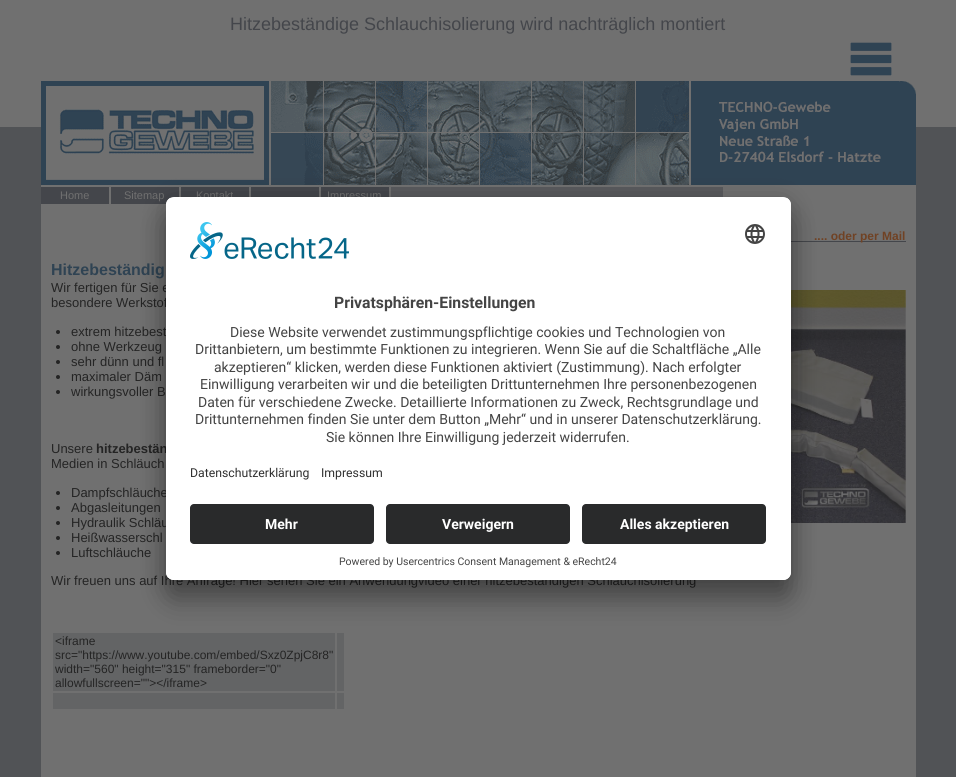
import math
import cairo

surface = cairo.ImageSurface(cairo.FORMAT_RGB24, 956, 777)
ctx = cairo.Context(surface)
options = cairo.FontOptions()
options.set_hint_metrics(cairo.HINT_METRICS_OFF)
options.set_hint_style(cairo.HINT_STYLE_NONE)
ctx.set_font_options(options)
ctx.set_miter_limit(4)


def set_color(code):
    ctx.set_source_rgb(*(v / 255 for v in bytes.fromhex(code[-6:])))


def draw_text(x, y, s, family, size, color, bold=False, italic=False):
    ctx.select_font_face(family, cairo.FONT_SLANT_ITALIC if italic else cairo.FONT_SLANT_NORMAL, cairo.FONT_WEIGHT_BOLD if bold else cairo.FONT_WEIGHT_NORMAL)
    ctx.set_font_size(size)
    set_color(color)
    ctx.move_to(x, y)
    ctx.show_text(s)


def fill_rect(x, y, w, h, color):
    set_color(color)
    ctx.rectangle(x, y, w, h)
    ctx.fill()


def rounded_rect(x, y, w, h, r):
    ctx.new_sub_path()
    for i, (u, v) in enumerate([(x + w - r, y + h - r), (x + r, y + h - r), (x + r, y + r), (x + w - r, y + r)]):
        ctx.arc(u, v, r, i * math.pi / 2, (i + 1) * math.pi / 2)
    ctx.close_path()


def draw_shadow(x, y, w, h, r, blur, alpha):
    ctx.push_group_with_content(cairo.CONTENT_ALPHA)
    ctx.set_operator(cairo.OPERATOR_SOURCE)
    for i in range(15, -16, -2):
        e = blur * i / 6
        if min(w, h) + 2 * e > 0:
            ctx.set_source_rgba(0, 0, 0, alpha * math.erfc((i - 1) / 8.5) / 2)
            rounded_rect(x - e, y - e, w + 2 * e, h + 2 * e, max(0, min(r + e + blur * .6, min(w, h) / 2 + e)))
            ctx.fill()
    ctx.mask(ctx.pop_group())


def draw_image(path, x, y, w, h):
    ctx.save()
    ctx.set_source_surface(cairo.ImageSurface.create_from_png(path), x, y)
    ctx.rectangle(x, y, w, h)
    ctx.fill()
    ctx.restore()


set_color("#515356")
ctx.paint()
fill_rect(0, 0, 956, 127, "#707070")
draw_text(230, 30, "Hitzebeständige Schlauchisolierung wird nachträglich montiert", "Liberation Sans", 18, "#44464b")
fill_rect(41, 127, 875, 650, "#707070")
draw_image("assets/img1.png", 41, 81, 875, 104)
draw_image("assets/img2.png", 850, 42, 42, 34)
draw_image("assets/img3.png", 391, 187, 332, 10)
fill_rect(41, 187, 68, 17, "#44464b")
draw_text(60, 199, "Home", "Liberation Sans", 11, "#707070")
fill_rect(111, 187, 68, 17, "#44464b")
draw_text(124, 199, "Sitemap", "Liberation Sans", 11, "#707070")
fill_rect(181, 187, 68, 10, "#44464b")
draw_text(196, 199, "Kontakt", "Liberation Sans", 11, "#707070")
fill_rect(251, 187, 68, 10, "#44464b")
fill_rect(321, 187, 68, 10, "#44464b")
draw_text(327, 199, "Impressum", "Liberation Sans", 11, "#707070")
fill_rect(791, 241, 115, 1, "#44464b")
draw_text(814, 240, ".... oder per Mail", "Liberation Sans", 12, "#704224", bold=True)
draw_text(51, 275, "Hitzebeständig", "Liberation Sans", 16, "#2f4353", bold=True)
draw_text(51, 292, "Wir fertigen für Sie e", "Liberation Sans", 13, "#242424")
draw_text(51, 307, "besondere Werkstof", "Liberation Sans", 13, "#242424")
draw_image("assets/img4.png", 791, 290, 115, 233)
ctx.arc(58, 332, 2, 0, 2 * math.pi)
ctx.fill()
draw_text(71, 336, "extrem hitzebest", "Liberation Sans", 13, "#242424")
ctx.new_path()
ctx.arc(58, 347, 2, 0, 2 * math.pi)
ctx.fill()
draw_text(71, 351, "ohne Werkzeug", "Liberation Sans", 13, "#242424")
ctx.new_path()
ctx.arc(58, 362, 2, 0, 2 * math.pi)
ctx.fill()
draw_text(71, 366, "sehr dünn und fl", "Liberation Sans", 13, "#242424")
ctx.new_path()
ctx.arc(58, 377, 2, 0, 2 * math.pi)
ctx.fill()
draw_text(71, 381, "maximaler Däm", "Liberation Sans", 13, "#242424")
ctx.new_path()
ctx.arc(58, 392, 2, 0, 2 * math.pi)
ctx.fill()
draw_text(71, 396, "wirkungsvoller B", "Liberation Sans", 13, "#242424")
draw_text(51, 453, "Unsere", "Liberation Sans", 13, "#242424")
draw_text(96, 453, "hitzebestän", "Liberation Sans", 13, "#242424", bold=True)
draw_text(51, 468, "Medien in Schläuch", "Liberation Sans", 13, "#242424")
ctx.new_path()
ctx.arc(58, 493, 2, 0, 2 * math.pi)
ctx.fill()
draw_text(71, 497, "Dampfschläuche", "Liberation Sans", 13, "#242424")
ctx.new_path()
ctx.arc(58, 508, 2, 0, 2 * math.pi)
ctx.fill()
draw_text(71, 512, "Abgasleitungen", "Liberation Sans", 13, "#242424")
ctx.new_path()
ctx.arc(58, 523, 2, 0, 2 * math.pi)
ctx.fill()
draw_text(71, 527, "Hydraulik Schläu", "Liberation Sans", 13, "#242424")
ctx.new_path()
ctx.arc(58, 538, 2, 0, 2 * math.pi)
ctx.fill()
draw_text(71, 542, "Heißwasserschl", "Liberation Sans", 13, "#242424")
ctx.new_path()
ctx.arc(58, 553, 2, 0, 2 * math.pi)
ctx.fill()
draw_text(71, 557, "Luftschläuche", "Liberation Sans", 13, "#242424")
draw_text(51, 585, "Wir freuen uns auf Ihre Anfrage! Hier sehen Sie ein Anwendungvideo einer hitzebeständigen Schlauchisolierung", "Liberation Sans", 13, "#242424")
fill_rect(53, 633, 282, 58, "#636465")
draw_text(55, 645, "<iframe", "Liberation Sans", 12, "#242424")
draw_text(55, 659, "src=\"https://www.youtube.com/embed/Sxz0ZpjC8r8\"", "Liberation Sans", 12, "#242424")
draw_text(55, 673, "width=\"560\" height=\"315\" frameborder=\"0\"", "Liberation Sans", 12, "#242424")
draw_text(55, 687, "allowfullscreen=\"\"></iframe>", "Liberation Sans", 12, "#242424")
fill_rect(337, 633, 7, 58, "#636465")
fill_rect(53, 693, 282, 16, "#636465")
fill_rect(337, 693, 7, 16, "#636465")
set_color("#000000")
draw_shadow(166, 217, 625, 383, 8, 14, 0.3)
draw_shadow(166, 202, 625, 383, 8, 13, 0.22)
set_color("#ffffff")
rounded_rect(166, 197, 625, 383, 8)
ctx.fill()
ctx.save()
rounded_rect(166, 197, 625, 383, 8)
ctx.clip()
ctx.new_path()
ctx.move_to(174, 197)
ctx.line_to(783, 197)
ctx.curve_to(787.5, 197, 791, 200.5, 791, 205)
ctx.line_to(791, 496)
ctx.line_to(166, 496)
ctx.line_to(166, 205)
ctx.curve_to(166, 200.5, 169.5, 197, 174, 197)
ctx.close_path()
ctx.clip()
fill_rect(166, 198, 625, 298, "#ffffff")
ctx.restore()
draw_image("assets/img5.png", 190, 222, 159, 37)
draw_image("assets/img6.png", 745, 224, 20, 20)
draw_text(334, 308, "Privatsphären-Einstellungen", "Roboto", 15.75, "#444444", bold=True)
draw_text(230, 337, "Diese Website verwendet zustimmungspflichtige cookies und Technologien von", "Roboto", 14, "#444444")
draw_text(195, 354, "Drittanbietern, um bestimmte Funktionen zu integrieren. Wenn Sie auf die Schaltfläche „Alle", "Roboto", 14, "#444444")
draw_text(214, 372, "akzeptieren“ klicken, werden diese Funktionen aktiviert (Zustimmung). Nach erfolgter", "Roboto", 14, "#444444")
draw_text(200, 389, "Einwilligung verarbeiten wir und die beteiligten Drittunternehmen Ihre personenbezogenen", "Roboto", 14, "#444444")
draw_text(198, 407, "Daten für verschiedene Zwecke. Detaillierte Informationen zu Zweck, Rechtsgrundlage und", "Roboto", 14, "#444444")
draw_text(195, 424, "Drittunternehmen finden Sie unter dem Button „Mehr“ und in unserer Datenschutzerklärung.", "Roboto", 14, "#444444")
draw_text(326, 442, "Sie können Ihre Einwilligung jederzeit widerrufen.", "Roboto", 14, "#444444")
draw_text(190, 477, "Datenschutzerklärung", "Roboto", 12.25, "#303030")
draw_text(321, 477, "Impressum", "Roboto", 12.25, "#303030")
set_color("#ffffff")
ctx.new_path()
ctx.move_to(166, 496)
ctx.line_to(791, 496)
ctx.line_to(791, 572)
ctx.curve_to(791, 576.5, 787.5, 580, 783, 580)
ctx.line_to(174, 580)
ctx.curve_to(169.5, 580, 166, 576.5, 166, 572)
ctx.close_path()
ctx.fill()
set_color("#292a2b")
rounded_rect(190, 504, 184, 40, 4)
ctx.fill()
draw_text(265, 529, "Mehr", "Roboto", 14, "#ffffff", bold=True)
set_color("#292a2b")
rounded_rect(386, 504, 184, 40, 4)
ctx.fill()
draw_text(442, 529, "Verweigern", "Roboto", 14, "#ffffff", bold=True)
set_color("#292a2b")
rounded_rect(582, 504, 184, 40, 4)
ctx.fill()
draw_text(620, 529, "Alles akzeptieren", "Roboto", 14, "#ffffff", bold=True)
draw_text(339, 565, "Powered by Usercentrics Consent Management & eRecht24", "Roboto", 10.5, "#444444")
surface.write_to_png("output.png")
